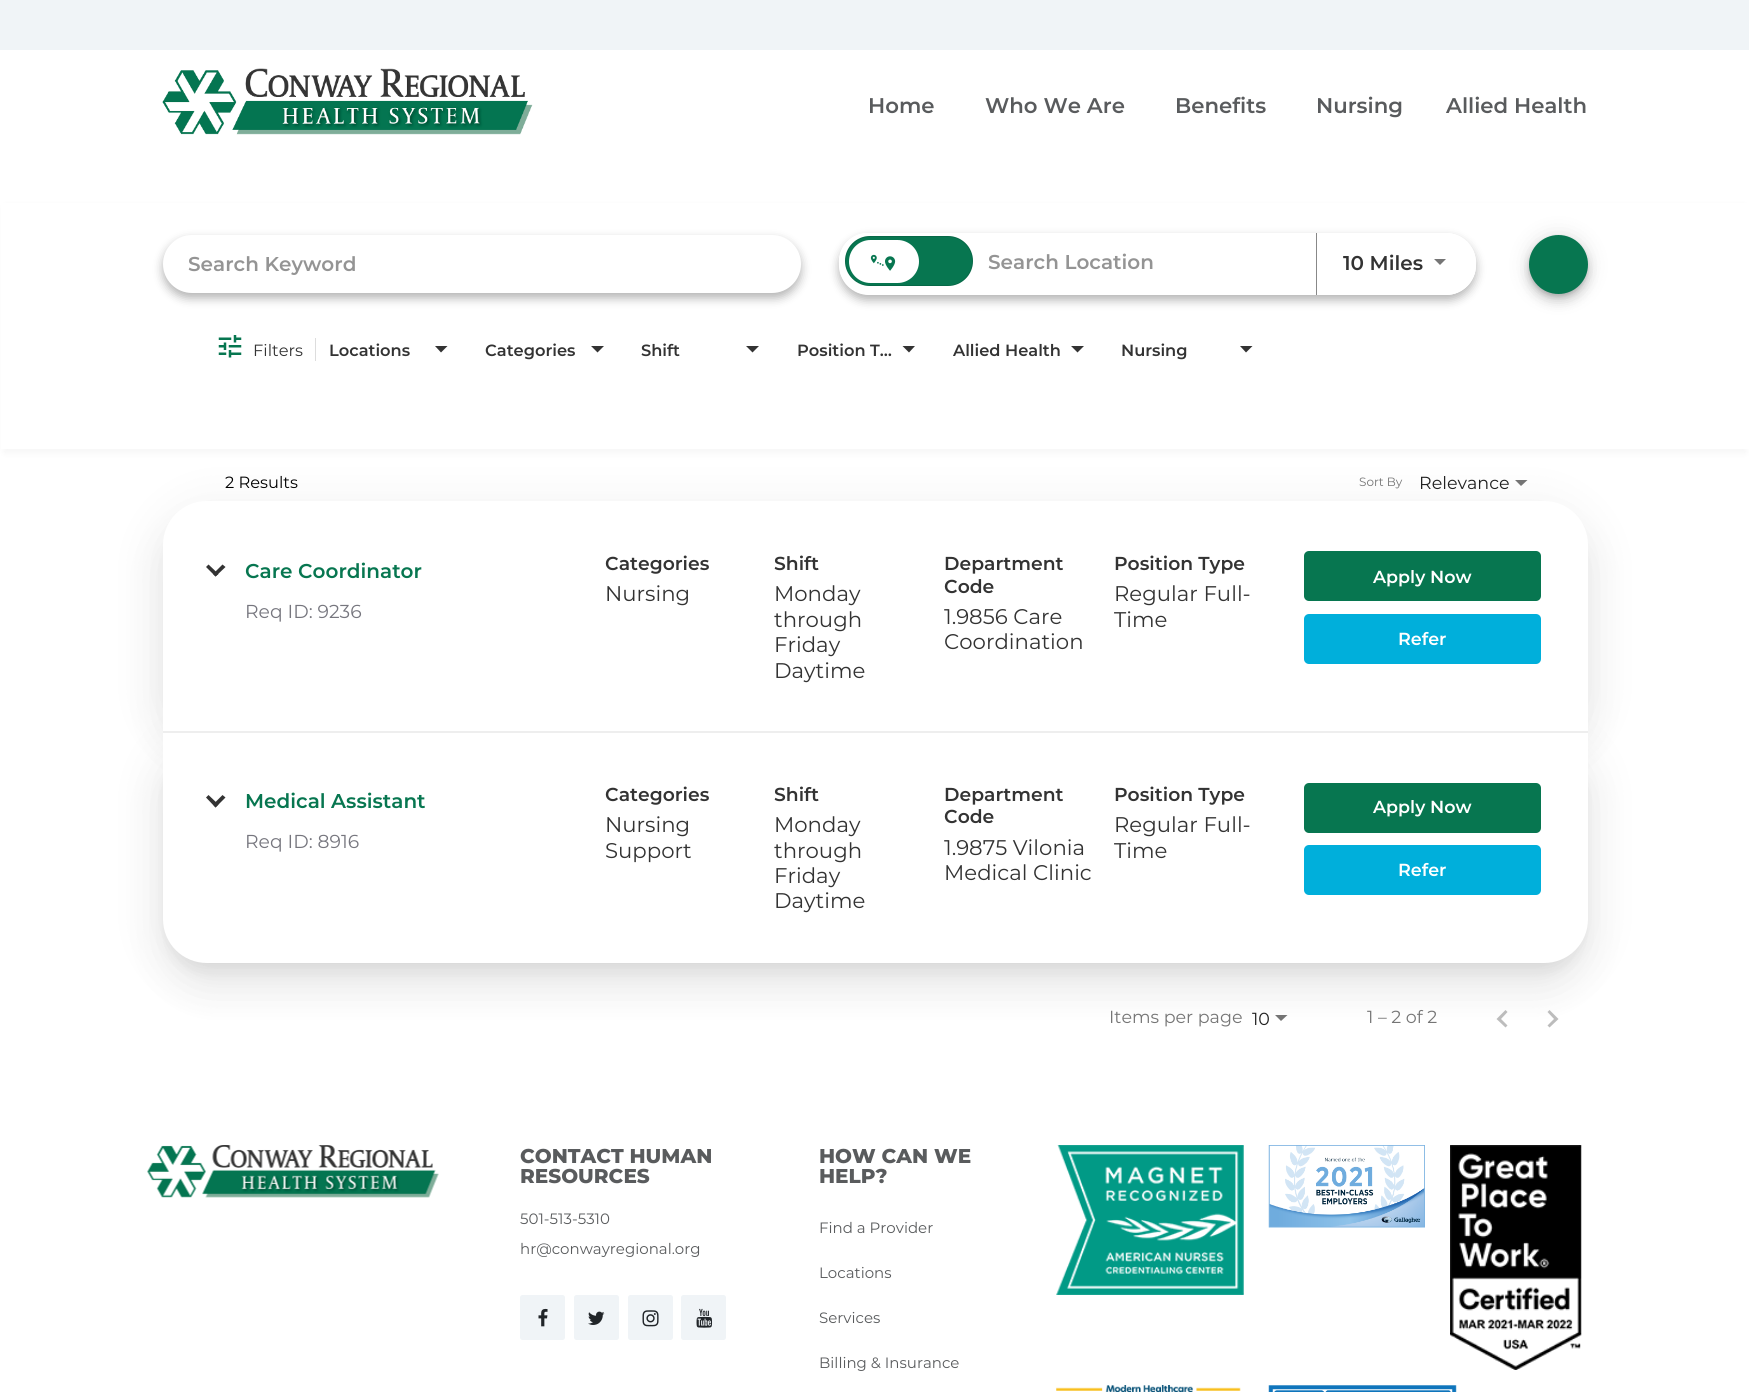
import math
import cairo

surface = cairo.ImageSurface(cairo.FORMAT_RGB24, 1749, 1392)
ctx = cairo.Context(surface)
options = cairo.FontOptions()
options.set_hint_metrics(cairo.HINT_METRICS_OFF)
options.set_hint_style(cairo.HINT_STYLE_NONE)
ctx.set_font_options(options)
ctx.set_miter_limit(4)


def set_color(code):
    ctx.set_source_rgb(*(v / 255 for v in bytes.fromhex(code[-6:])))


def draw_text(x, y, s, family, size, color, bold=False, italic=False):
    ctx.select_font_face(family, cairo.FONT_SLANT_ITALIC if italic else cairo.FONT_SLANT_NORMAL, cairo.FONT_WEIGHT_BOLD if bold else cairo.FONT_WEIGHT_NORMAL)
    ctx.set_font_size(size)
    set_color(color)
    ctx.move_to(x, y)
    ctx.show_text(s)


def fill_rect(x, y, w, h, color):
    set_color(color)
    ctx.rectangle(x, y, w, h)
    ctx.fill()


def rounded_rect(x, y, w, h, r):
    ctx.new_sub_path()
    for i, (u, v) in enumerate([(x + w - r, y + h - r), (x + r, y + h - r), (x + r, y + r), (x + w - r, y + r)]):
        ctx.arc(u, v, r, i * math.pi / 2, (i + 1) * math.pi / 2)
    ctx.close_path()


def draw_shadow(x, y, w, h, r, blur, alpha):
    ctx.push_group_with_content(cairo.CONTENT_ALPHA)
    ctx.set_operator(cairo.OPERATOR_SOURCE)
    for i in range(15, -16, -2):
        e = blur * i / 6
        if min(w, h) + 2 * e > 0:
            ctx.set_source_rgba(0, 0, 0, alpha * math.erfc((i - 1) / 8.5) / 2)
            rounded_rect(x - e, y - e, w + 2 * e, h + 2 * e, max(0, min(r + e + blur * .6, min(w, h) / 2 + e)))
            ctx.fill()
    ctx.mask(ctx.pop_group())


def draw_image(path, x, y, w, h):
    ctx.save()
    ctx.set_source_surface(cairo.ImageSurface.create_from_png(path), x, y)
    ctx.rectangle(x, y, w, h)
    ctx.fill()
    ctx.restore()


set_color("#ffffff")
ctx.paint()
fill_rect(0, 0, 1749, 50, "#f0f4f7")
draw_image("assets/img1.png", 162, 68, 371, 67)
draw_text(868, 113, "Home", "Montserrat SemiBold", 21.25, "#595b5d")
draw_text(985, 113, "Who We Are", "Montserrat SemiBold", 21.25, "#595b5d")
draw_text(1175, 113, "Benefits", "Montserrat SemiBold", 21.25, "#595b5d")
draw_text(1316, 113, "Nursing", "Montserrat SemiBold", 21.25, "#595b5d")
draw_text(1446, 113, "Allied Health", "Montserrat SemiBold", 21.25, "#595b5d")
set_color("#000000")
draw_shadow(4, 206, 1742, 247, 0, 4, 0.04)
fill_rect(1, 203, 1748, 246, "#ffffff")
set_color("#000000")
draw_shadow(163, 240, 638, 58, 29, 5, 0.3)
set_color("#ffffff")
rounded_rect(163, 235, 638, 58, 29)
ctx.fill()
draw_text(188, 271, "Search Keyword", "Montserrat SemiBold", 20, "#949494")
ctx.save()
ctx.set_fill_rule(cairo.FILL_RULE_EVEN_ODD)
ctx.new_path()
ctx.move_to(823, 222)
ctx.line_to(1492, 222)
ctx.line_to(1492, 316)
ctx.line_to(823, 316)
ctx.close_path()
ctx.move_to(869, 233)
ctx.line_to(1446, 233)
ctx.curve_to(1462.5, 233, 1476, 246.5, 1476, 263)
ctx.line_to(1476, 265)
ctx.curve_to(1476, 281.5, 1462.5, 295, 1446, 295)
ctx.line_to(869, 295)
ctx.curve_to(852.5, 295, 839, 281.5, 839, 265)
ctx.line_to(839, 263)
ctx.curve_to(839, 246.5, 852.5, 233, 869, 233)
ctx.close_path()
ctx.clip()
set_color("#000000")
draw_shadow(839, 238, 637, 62, 30, 5, 0.3)
ctx.restore()
set_color("#ffffff")
rounded_rect(839, 233, 467, 57, 28.5)
ctx.fill()
rounded_rect(839, 233, 140, 57, 28.5)
ctx.fill()
set_color("#077650")
rounded_rect(845, 236, 128, 50, 25)
ctx.fill()
rounded_rect(845.5, 236.5, 127, 49, 24.5)
ctx.set_source_rgba(0, 0, 0, 0.12)
ctx.set_line_width(1)
ctx.stroke()
set_color("#077650")
ctx.new_path()
ctx.move_to(869.5, 238)
ctx.line_to(921, 238)
ctx.line_to(921, 285)
ctx.line_to(869.5, 285)
ctx.curve_to(856.5, 285, 846, 274.5, 846, 261.5)
ctx.curve_to(846, 248.5, 856.5, 238, 869.5, 238)
ctx.close_path()
ctx.fill()
set_color("#ffffff")
rounded_rect(849, 240, 70, 43, 21.5)
ctx.fill()
draw_image("assets/img2.png", 870, 254, 26, 17)
set_color("#077650")
ctx.new_path()
ctx.move_to(921, 238)
ctx.line_to(947.5, 238)
ctx.curve_to(960.5, 238, 971, 248.5, 971, 261.5)
ctx.curve_to(971, 274.5, 960.5, 285, 947.5, 285)
ctx.line_to(921, 285)
ctx.close_path()
ctx.fill()
draw_text(988, 269, "Search Location", "Montserrat SemiBold", 20, "#949494")
set_color("#ffffff")
ctx.new_path()
ctx.move_to(1316, 233)
ctx.line_to(1446, 233)
ctx.curve_to(1462.5, 233, 1476, 246.5, 1476, 263)
ctx.line_to(1476, 265)
ctx.curve_to(1476, 281.5, 1462.5, 295, 1446, 295)
ctx.line_to(1316, 295)
ctx.close_path()
ctx.fill()
fill_rect(1316, 233, 1, 62, "#888888")
draw_text(1343, 270, "10 Miles", "Montserrat SemiBold", 20, "#333333")
set_color("#757575")
ctx.new_path()
ctx.move_to(1434, 259)
ctx.line_to(1446, 259)
ctx.line_to(1440, 265)
ctx.close_path()
ctx.fill()
set_color("#000000")
draw_shadow(1529, 236, 59, 59, 29.5, 11, 0.12)
draw_shadow(1529, 243, 59, 58, 29, 6, 0.14)
draw_shadow(1530, 240, 56, 56, 28, 3, 0.2)
set_color("#077650")
ctx.arc(1558.5, 264.5, 29.5, 0, 2 * math.pi)
ctx.fill()
draw_image("assets/img3.png", 218, 335, 24, 23)
fill_rect(315, 338, 1, 23, "#dddddd")
draw_text(253, 356, "Filters", "Montserrat", 16.25, "#333333")
draw_text(329, 356, "Locations", "Montserrat SemiBold", 16.25, "#333333")
ctx.new_path()
ctx.move_to(435, 346)
ctx.line_to(447.5, 346)
ctx.line_to(441, 352.5)
ctx.close_path()
ctx.fill()
draw_text(485, 356, "Categories", "Montserrat SemiBold", 16.25, "#333333")
ctx.new_path()
ctx.move_to(591, 346)
ctx.line_to(604, 346)
ctx.line_to(597.5, 352.5)
ctx.close_path()
ctx.fill()
draw_text(641, 356, "Shift", "Montserrat SemiBold", 16.25, "#333333")
ctx.new_path()
ctx.move_to(746, 346)
ctx.line_to(759, 346)
ctx.line_to(752.5, 352.5)
ctx.close_path()
ctx.fill()
draw_text(797, 356, "Position T…", "Montserrat SemiBold", 16.25, "#333333")
ctx.new_path()
ctx.move_to(902.5, 346)
ctx.line_to(915, 346)
ctx.line_to(909, 352.5)
ctx.close_path()
ctx.fill()
draw_text(953, 356, "Allied Health", "Montserrat SemiBold", 16.25, "#333333")
ctx.new_path()
ctx.move_to(1071, 346)
ctx.line_to(1084, 346)
ctx.line_to(1077.5, 352.5)
ctx.close_path()
ctx.fill()
draw_text(1121, 356, "Nursing", "Montserrat SemiBold", 16.25, "#333333")
ctx.new_path()
ctx.move_to(1240, 346)
ctx.line_to(1252.5, 346)
ctx.line_to(1246, 352.5)
ctx.close_path()
ctx.fill()
draw_text(225, 488, "2 Results", "Montserrat", 16.25, "#000000")
draw_text(1359, 486, "Sort By", "Montserrat", 12, "#757575")
draw_text(1419, 489, "Relevance", "Montserrat", 17.5, "#212121")
set_color("#757575")
ctx.new_path()
ctx.move_to(1515, 480)
ctx.line_to(1527.5, 480)
ctx.line_to(1521, 486)
ctx.close_path()
ctx.fill()
set_color("#000000")
draw_shadow(154, 503, 1442, 248, 53, 24, 0.05)
draw_shadow(159, 523, 1432, 238, 48, 19.5, 0.06)
draw_shadow(154, 734, 1442, 247, 53, 24, 0.05)
draw_shadow(159, 754, 1432, 237, 48, 19.5, 0.06)
draw_shadow(170, 753, 1410, 215, 36, 8, 0.08)
set_color("#ffffff")
ctx.new_path()
ctx.move_to(207, 501)
ctx.line_to(1544, 501)
ctx.curve_to(1568.5, 501, 1588, 520.5, 1588, 545)
ctx.line_to(1588, 733)
ctx.line_to(163, 733)
ctx.line_to(163, 545)
ctx.curve_to(163, 520.5, 182.5, 501, 207, 501)
ctx.close_path()
ctx.fill()
set_color("#333333")
ctx.new_path()
ctx.move_to(222.5, 564.5)
ctx.line_to(225.5, 567)
ctx.line_to(215.5, 576.5)
ctx.line_to(213, 574)
ctx.close_path()
ctx.fill()
ctx.new_path()
ctx.move_to(208.5, 564.5)
ctx.line_to(218.5, 574)
ctx.line_to(215.5, 576.5)
ctx.line_to(206, 567)
ctx.close_path()
ctx.fill()
draw_text(245, 578, "Care Coordinator", "Montserrat SemiBold", 20, "#077650")
draw_text(245, 618, "Req ID: 9236", "Montserrat", 18.75, "#76767e")
draw_text(605, 570, "Categories", "Montserrat SemiBold", 18.75, "#333333")
draw_text(605, 601, "Nursing", "Montserrat", 21.25, "#333333")
draw_text(774, 570, "Shift", "Montserrat SemiBold", 18.75, "#333333")
draw_text(774, 601, "Monday", "Montserrat", 21.25, "#333333")
draw_text(774, 627, "through", "Montserrat", 21.25, "#333333")
draw_text(774, 652, "Friday", "Montserrat", 21.25, "#333333")
draw_text(774, 678, "Daytime", "Montserrat", 21.25, "#333333")
draw_text(944, 570, "Department", "Montserrat SemiBold", 18.75, "#333333")
draw_text(944, 593, "Code", "Montserrat SemiBold", 18.75, "#333333")
draw_text(944, 624, "1.9856 Care", "Montserrat", 21.25, "#333333")
draw_text(944, 649, "Coordination", "Montserrat", 21.25, "#333333")
draw_text(1114, 570, "Position Type", "Montserrat SemiBold", 18.75, "#333333")
draw_text(1114, 601, "Regular Full-", "Montserrat", 21.25, "#333333")
draw_text(1114, 627, "Time", "Montserrat", 21.25, "#333333")
set_color("#077650")
rounded_rect(1304, 551, 237, 50, 5)
ctx.fill()
draw_text(1373, 583, "Apply Now", "Montserrat SemiBold", 17.5, "#ffffff")
set_color("#00afdb")
rounded_rect(1304, 614, 237, 50, 5)
ctx.fill()
draw_text(1398, 645, "Refer", "Montserrat SemiBold", 17.5, "#ffffff")
fill_rect(163, 731, 1425, 2, "#eeeeee")
set_color("#ffffff")
ctx.new_path()
ctx.move_to(163, 733)
ctx.line_to(1588, 733)
ctx.line_to(1588, 919)
ctx.curve_to(1588, 943.5, 1568.5, 963, 1544, 963)
ctx.line_to(207, 963)
ctx.curve_to(182.5, 963, 163, 943.5, 163, 919)
ctx.close_path()
ctx.fill()
set_color("#333333")
ctx.new_path()
ctx.move_to(222.5, 795)
ctx.line_to(225.5, 797.5)
ctx.line_to(215.5, 807.5)
ctx.line_to(213, 804.5)
ctx.close_path()
ctx.fill()
ctx.new_path()
ctx.move_to(208.5, 795)
ctx.line_to(218.5, 804.5)
ctx.line_to(215.5, 807.5)
ctx.line_to(206, 797.5)
ctx.close_path()
ctx.fill()
draw_text(245, 808, "Medical Assistant", "Montserrat SemiBold", 20, "#077650")
draw_text(245, 848, "Req ID: 8916", "Montserrat", 18.75, "#76767e")
draw_text(605, 801, "Categories", "Montserrat SemiBold", 18.75, "#333333")
draw_text(605, 832, "Nursing", "Montserrat", 21.25, "#333333")
draw_text(605, 858, "Support", "Montserrat", 21.25, "#333333")
draw_text(774, 801, "Shift", "Montserrat SemiBold", 18.75, "#333333")
draw_text(774, 832, "Monday", "Montserrat", 21.25, "#333333")
draw_text(774, 858, "through", "Montserrat", 21.25, "#333333")
draw_text(774, 883, "Friday", "Montserrat", 21.25, "#333333")
draw_text(774, 908, "Daytime", "Montserrat", 21.25, "#333333")
draw_text(944, 801, "Department", "Montserrat SemiBold", 18.75, "#333333")
draw_text(944, 823, "Code", "Montserrat SemiBold", 18.75, "#333333")
draw_text(944, 855, "1.9875 Vilonia", "Montserrat", 21.25, "#333333")
draw_text(944, 880, "Medical Clinic", "Montserrat", 21.25, "#333333")
draw_text(1114, 801, "Position Type", "Montserrat SemiBold", 18.75, "#333333")
draw_text(1114, 832, "Regular Full-", "Montserrat", 21.25, "#333333")
draw_text(1114, 858, "Time", "Montserrat", 21.25, "#333333")
set_color("#077650")
rounded_rect(1304, 783, 237, 50, 5)
ctx.fill()
draw_text(1373, 813, "Apply Now", "Montserrat SemiBold", 17.5, "#ffffff")
set_color("#00afdb")
rounded_rect(1304, 845, 237, 50, 5)
ctx.fill()
draw_text(1398, 876, "Refer", "Montserrat SemiBold", 17.5, "#ffffff")
draw_text(1109, 1023, "Items per page", "Montserrat", 17.5, "#757575")
draw_text(1252, 1025, "10", "Montserrat", 17.5, "#212121")
set_color("#747474")
ctx.new_path()
ctx.move_to(1275, 1015)
ctx.line_to(1287.5, 1015)
ctx.line_to(1281, 1021)
ctx.close_path()
ctx.fill()
draw_text(1367, 1023, "1 – 2 of 2", "Montserrat", 17.5, "#757575")
ctx.set_source_rgba(0, 0, 0, 0.26)
ctx.new_path()
ctx.move_to(1507.5, 1012)
ctx.line_to(1505.5, 1010)
ctx.line_to(1496.5, 1019)
ctx.line_to(1505.5, 1027.5)
ctx.line_to(1507.5, 1025.5)
ctx.line_to(1501, 1019)
ctx.close_path()
ctx.fill()
set_color("#bcbcbc")
ctx.new_path()
ctx.move_to(1549.5, 1010)
ctx.line_to(1547.5, 1012)
ctx.line_to(1554, 1019)
ctx.line_to(1547.5, 1025.5)
ctx.line_to(1549.5, 1027.5)
ctx.line_to(1558.5, 1019)
ctx.close_path()
ctx.fill()
draw_image("assets/img4.png", 147, 1145, 292, 53)
draw_text(520, 1163, "CONTACT HUMAN", "Montserrat ExtraBold", 20, "#595b5d")
draw_text(520, 1183, "RESOURCES", "Montserrat ExtraBold", 20, "#595b5d")
draw_text(520, 1224, "501-513-5310", "Montserrat", 15, "#595b5d")
draw_text(520, 1254, "hr@conwayregional.org", "Montserrat", 15, "#595b5d")
set_color("#f0f4f7")
rounded_rect(520, 1295, 45, 45, 2.5)
ctx.fill()
draw_image("assets/img5.png", 538, 1308, 10, 19)
rounded_rect(574, 1295, 45, 45, 2.5)
ctx.fill()
draw_image("assets/img6.png", 588, 1311, 17, 14)
rounded_rect(628, 1295, 45, 45, 2.5)
ctx.fill()
draw_image("assets/img7.png", 642, 1310, 17, 17)
rounded_rect(681, 1295, 45, 45, 2.5)
ctx.fill()
draw_image("assets/img8.png", 696, 1308, 17, 20)
draw_text(819, 1163, "HOW CAN WE", "Montserrat ExtraBold", 20, "#595b5d")
draw_text(819, 1183, "HELP?", "Montserrat ExtraBold", 20, "#595b5d")
draw_text(819, 1233, "Find a Provider", "Montserrat", 15, "#595b5d")
draw_text(819, 1278, "Locations", "Montserrat", 15, "#595b5d")
draw_text(819, 1323, "Services", "Montserrat", 15, "#595b5d")
draw_text(819, 1368, "Billing & Insurance", "Montserrat", 15, "#595b5d")
draw_image("assets/img9.png", 1056, 1145, 188, 150)
draw_image("assets/img10.png", 1268, 1145, 157, 83)
draw_image("assets/img11.png", 1450, 1145, 132, 225)
draw_image("assets/img12.png", 1056, 1385, 185, 7)
draw_image("assets/img13.png", 1268, 1385, 189, 7)
surface.write_to_png("output.png")
